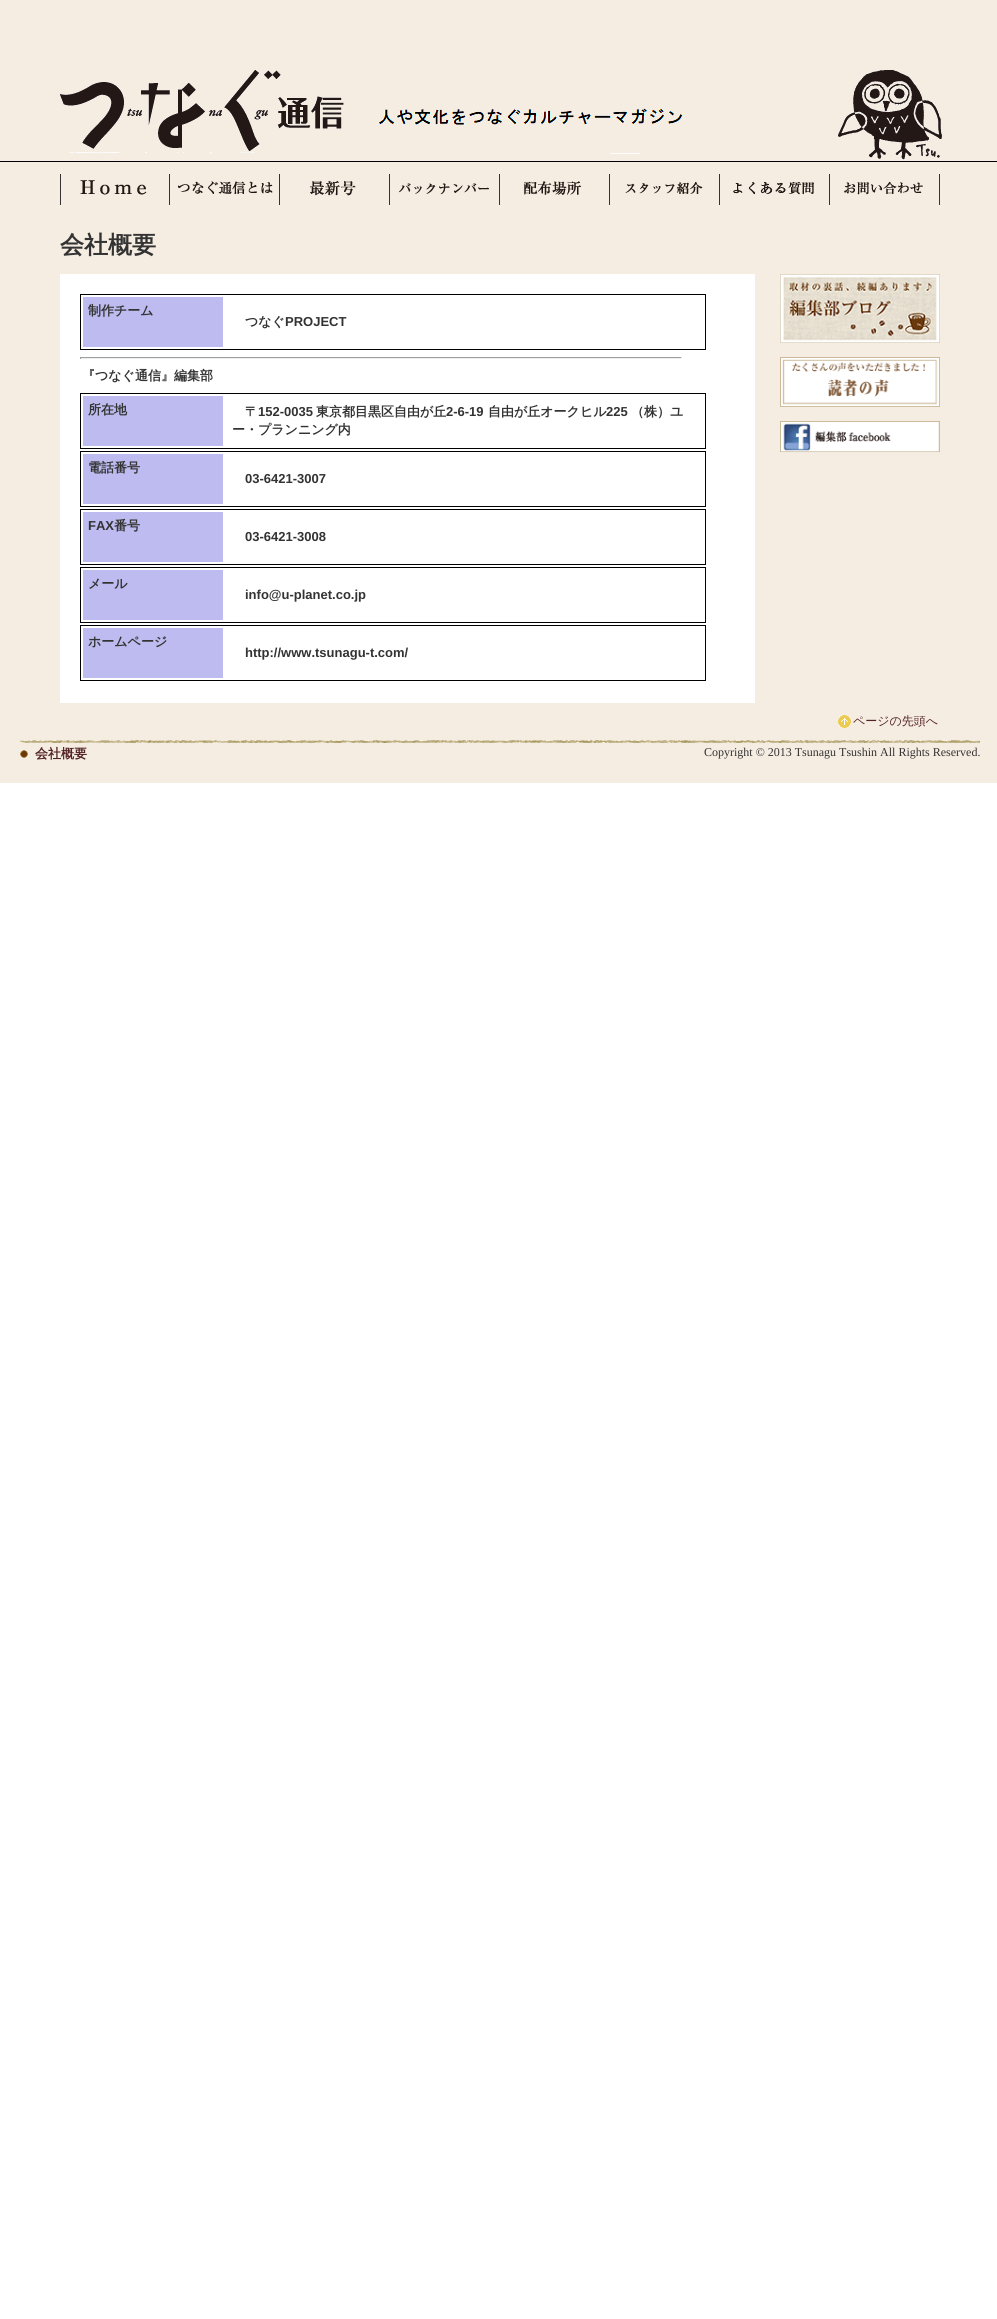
import math
import cairo

surface = cairo.ImageSurface(cairo.FORMAT_RGB24, 997, 2319)
ctx = cairo.Context(surface)
options = cairo.FontOptions()
options.set_hint_metrics(cairo.HINT_METRICS_OFF)
options.set_hint_style(cairo.HINT_STYLE_NONE)
ctx.set_font_options(options)
ctx.set_miter_limit(4)


def set_color(code):
    ctx.set_source_rgb(*(v / 255 for v in bytes.fromhex(code[-6:])))


def draw_text(x, y, s, family, size, color, bold=False, italic=False):
    ctx.select_font_face(family, cairo.FONT_SLANT_ITALIC if italic else cairo.FONT_SLANT_NORMAL, cairo.FONT_WEIGHT_BOLD if bold else cairo.FONT_WEIGHT_NORMAL)
    ctx.set_font_size(size)
    set_color(color)
    ctx.move_to(x, y)
    ctx.show_text(s)


def fill_rect(x, y, w, h, color):
    set_color(color)
    ctx.rectangle(x, y, w, h)
    ctx.fill()


def draw_image(path, x, y, w, h):
    ctx.save()
    ctx.set_source_surface(cairo.ImageSurface.create_from_png(path), x, y)
    ctx.rectangle(x, y, w, h)
    ctx.fill()
    ctx.restore()


set_color("#ffffff")
ctx.paint()
fill_rect(0, 0, 997, 783, "#f5ede2")
draw_image("assets/img1.png", 0, 70, 997, 92)
fill_rect(169, 174, 1, 31, "#333333")
fill_rect(60, 174, 1, 31, "#333333")
draw_image("assets/img2.png", 80, 180, 67, 15)
fill_rect(279, 174, 1, 31, "#333333")
draw_image("assets/img3.png", 178, 181, 95, 13)
fill_rect(389, 174, 1, 31, "#333333")
draw_image("assets/img4.png", 310, 181, 46, 15)
fill_rect(499, 174, 1, 31, "#333333")
draw_image("assets/img5.png", 399, 183, 90, 12)
fill_rect(609, 174, 1, 31, "#333333")
draw_image("assets/img6.png", 524, 181, 57, 14)
fill_rect(719, 174, 1, 31, "#333333")
draw_image("assets/img7.png", 625, 182, 78, 12)
fill_rect(829, 174, 1, 31, "#333333")
draw_image("assets/img8.png", 733, 182, 81, 13)
fill_rect(939, 174, 1, 31, "#333333")
draw_image("assets/img9.png", 844, 181, 79, 14)
draw_text(60, 253, "会社概要", "WenQuanYi Zen Hei", 24, "#333333", bold=True)
fill_rect(60, 274, 695, 429, "#ffffff")
ctx.rectangle(80.5, 294.5, 625, 55)
set_color("#000000")
ctx.set_line_width(1)
ctx.stroke()
fill_rect(83, 297, 140, 50, "#bdbbef")
draw_text(88, 315, "制作チーム", "WenQuanYi Zen Hei", 13, "#333333", bold=True)
draw_text(245, 326, "つなぐ", "WenQuanYi Zen Hei", 13, "#333333", bold=True)
draw_text(285, 326, "PROJECT", "Liberation Sans", 13, "#333333", bold=True)
fill_rect(80, 357, 602, 1, "#9f9f9f")
fill_rect(681, 357, 1, 2, "#eeeeee")
fill_rect(80, 358, 602, 1, "#eeeeee")
fill_rect(80, 357, 1, 2, "#9f9f9f")
draw_text(82, 380, "『つなぐ通信』編集部", "WenQuanYi Zen Hei", 13, "#333333", bold=True)
ctx.rectangle(80.5, 393.5, 625, 55)
set_color("#000000")
ctx.stroke()
fill_rect(83, 396, 140, 50, "#bdbbef")
draw_text(88, 414, "所在地", "WenQuanYi Zen Hei", 13, "#333333", bold=True)
draw_text(245, 416, "〒", "WenQuanYi Zen Hei", 13, "#333333", bold=True)
draw_text(258, 416, "152-0035", "Liberation Sans", 13, "#333333", bold=True)
draw_text(316, 416, "東京都目黒区自由が丘", "WenQuanYi Zen Hei", 13, "#333333", bold=True)
draw_text(446, 416, "2-6-19", "Liberation Sans", 13, "#333333", bold=True)
draw_text(488, 416, "自由が丘オークヒル", "WenQuanYi Zen Hei", 13, "#333333", bold=True)
draw_text(606, 416, "225", "Liberation Sans", 13, "#333333", bold=True)
draw_text(631, 416, "（株）ユ", "WenQuanYi Zen Hei", 13, "#333333", bold=True)
draw_text(232, 434, "ー・プランニング内", "WenQuanYi Zen Hei", 13, "#333333", bold=True)
ctx.rectangle(80.5, 451.5, 625, 55)
set_color("#000000")
ctx.stroke()
fill_rect(83, 454, 140, 50, "#bdbbef")
draw_text(88, 472, "電話番号", "WenQuanYi Zen Hei", 13, "#333333", bold=True)
draw_text(245, 483, "03-6421-3007", "Liberation Sans", 13, "#333333", bold=True)
ctx.rectangle(80.5, 509.5, 625, 55)
set_color("#000000")
ctx.stroke()
fill_rect(83, 512, 140, 50, "#bdbbef")
draw_text(88, 530, "FAX", "Liberation Sans", 13, "#333333", bold=True)
draw_text(114, 530, "番号", "WenQuanYi Zen Hei", 13, "#333333", bold=True)
draw_text(245, 541, "03-6421-3008", "Liberation Sans", 13, "#333333", bold=True)
ctx.rectangle(80.5, 567.5, 625, 55)
set_color("#000000")
ctx.stroke()
fill_rect(83, 570, 140, 50, "#bdbbef")
draw_text(88, 588, "メール", "WenQuanYi Zen Hei", 13, "#333333", bold=True)
draw_text(245, 599, "info@u-planet.co.jp", "Liberation Sans", 13, "#333333", bold=True)
ctx.rectangle(80.5, 625.5, 625, 55)
set_color("#000000")
ctx.stroke()
fill_rect(83, 628, 140, 50, "#bdbbef")
draw_text(88, 646, "ホームページ", "WenQuanYi Zen Hei", 13, "#333333", bold=True)
draw_text(245, 657, "http://www.tsunagu-t.com/", "Liberation Sans", 13, "#333333", bold=True)
draw_image("assets/img10.png", 780, 274, 160, 69)
draw_image("assets/img11.png", 780, 357, 160, 50)
draw_image("assets/img12.png", 780, 421, 160, 32)
draw_image("assets/img13.png", 838, 715, 13, 13)
draw_text(853, 725, "ページの先頭へ", "WenQuanYi Zen Hei Medium", 12, "#532424")
draw_image("assets/img14.png", 20, 740, 960, 3)
draw_image("assets/img15.png", 20, 750, 8, 8)
draw_text(35, 758, "会社概要", "WenQuanYi Zen Hei", 13, "#532424", bold=True)
draw_text(704, 756, "Copyright © 2013 Tsunagu Tsushin All Rights Reserved.", "Liberation Serif", 12, "#333333")
surface.write_to_png("output.png")
